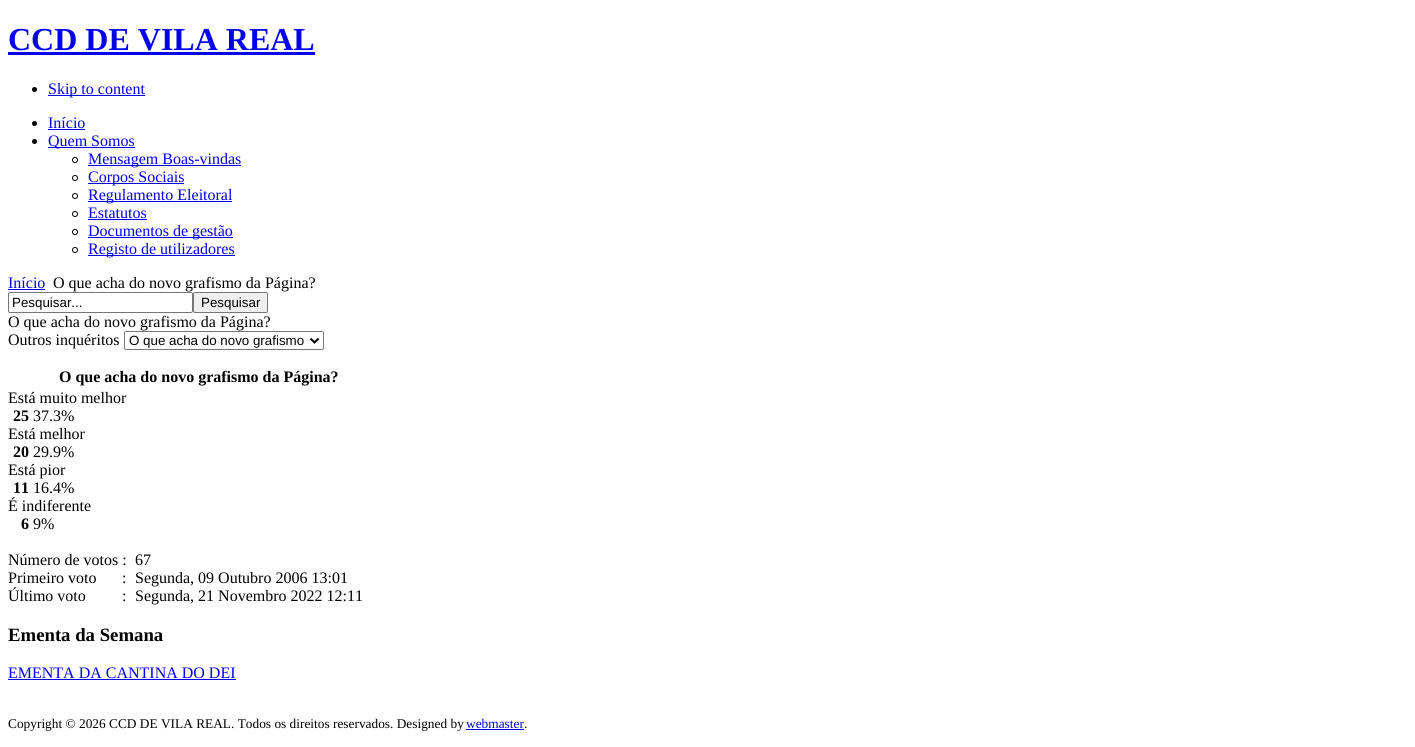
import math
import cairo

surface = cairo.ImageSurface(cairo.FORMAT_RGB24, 1415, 747)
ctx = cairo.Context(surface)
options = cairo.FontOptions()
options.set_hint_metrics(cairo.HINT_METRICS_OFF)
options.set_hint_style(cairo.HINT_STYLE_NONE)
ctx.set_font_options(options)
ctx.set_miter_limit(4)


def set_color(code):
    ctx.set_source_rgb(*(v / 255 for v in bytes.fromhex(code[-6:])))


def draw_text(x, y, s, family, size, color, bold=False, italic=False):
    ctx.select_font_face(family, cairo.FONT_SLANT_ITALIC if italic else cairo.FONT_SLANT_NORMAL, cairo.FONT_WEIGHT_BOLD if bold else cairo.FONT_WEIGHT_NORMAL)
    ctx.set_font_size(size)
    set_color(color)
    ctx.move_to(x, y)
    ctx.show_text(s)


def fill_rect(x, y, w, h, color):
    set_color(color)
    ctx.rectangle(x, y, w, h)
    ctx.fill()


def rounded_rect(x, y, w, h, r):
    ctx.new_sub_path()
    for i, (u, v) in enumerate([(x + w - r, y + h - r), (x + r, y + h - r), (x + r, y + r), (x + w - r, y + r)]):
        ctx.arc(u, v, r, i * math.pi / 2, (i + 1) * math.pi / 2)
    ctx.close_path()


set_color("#ffffff")
ctx.paint()
draw_text(8, 50, "CCD DE VILA REAL", "Liberation Serif", 32, "#0000ee", bold=True)
fill_rect(8, 52, 307, 3, "#0000ee")
set_color("#000000")
ctx.new_path()
ctx.arc(34.5, 89.5, 2.5, 0, 2 * math.pi)
ctx.fill()
fill_rect(48, 95, 97, 1, "#0000ee")
draw_text(48, 94, "Skip to content", "Liberation Serif", 16, "#0000ee")
set_color("#000000")
ctx.new_path()
ctx.arc(34.5, 123.5, 2.5, 0, 2 * math.pi)
ctx.fill()
draw_text(48, 128, "Início", "Liberation Serif", 16, "#0000ee")
fill_rect(48, 129, 37, 1, "#0000ee")
set_color("#000000")
ctx.new_path()
ctx.arc(34.5, 141.5, 2.5, 0, 2 * math.pi)
ctx.fill()
fill_rect(48, 147, 87, 1, "#0000ee")
draw_text(48, 146, "Quem Somos", "Liberation Serif", 16, "#0000ee")
ctx.new_path()
ctx.arc(75, 160, 2.5, 0, 2 * math.pi)
set_color("#000000")
ctx.set_line_width(1)
ctx.stroke()
fill_rect(88, 165, 153, 1, "#0000ee")
draw_text(88, 164, "Mensagem Boas-vindas", "Liberation Serif", 16, "#0000ee")
ctx.new_path()
ctx.arc(75, 178, 2.5, 0, 2 * math.pi)
set_color("#000000")
ctx.stroke()
fill_rect(88, 183, 96, 1, "#0000ee")
draw_text(88, 182, "Corpos Sociais", "Liberation Serif", 16, "#0000ee")
ctx.new_path()
ctx.arc(75, 196, 2.5, 0, 2 * math.pi)
set_color("#000000")
ctx.stroke()
fill_rect(88, 201, 144, 1, "#0000ee")
draw_text(88, 200, "Regulamento Eleitoral", "Liberation Serif", 16, "#0000ee")
ctx.new_path()
ctx.arc(75, 214, 2.5, 0, 2 * math.pi)
set_color("#000000")
ctx.stroke()
draw_text(88, 218, "Estatutos", "Liberation Serif", 16, "#0000ee")
fill_rect(88, 219, 59, 1, "#0000ee")
ctx.new_path()
ctx.arc(75, 232, 2.5, 0, 2 * math.pi)
set_color("#000000")
ctx.stroke()
fill_rect(88, 237, 145, 1, "#0000ee")
draw_text(88, 236, "Documentos de gestão", "Liberation Serif", 16, "#0000ee")
ctx.new_path()
ctx.arc(75, 250, 2.5, 0, 2 * math.pi)
set_color("#000000")
ctx.stroke()
fill_rect(88, 255, 147, 1, "#0000ee")
draw_text(88, 254, "Registo de utilizadores", "Liberation Serif", 16, "#0000ee")
draw_text(8, 288, "Início", "Liberation Serif", 16, "#0000ee")
fill_rect(8, 289, 37, 1, "#0000ee")
draw_text(53, 288, "O que acha do novo grafismo da Página?", "Liberation Serif", 16, "#000000")
rounded_rect(8.5, 292.5, 184, 20, 1.5)
set_color("#767676")
ctx.stroke()
draw_text(12, 307, "Pesquisar...", "Liberation Sans", 13.35, "#000000")
set_color("#efefef")
rounded_rect(193.5, 292.5, 74, 20, 1.5)
ctx.fill_preserve()
set_color("#767676")
ctx.stroke()
draw_text(201, 307, "Pesquisar", "Liberation Sans", 13.35, "#000000")
draw_text(8, 327, "O que acha do novo grafismo da Página?", "Liberation Serif", 16, "#000000")
draw_text(8, 345, "Outros inquéritos", "Liberation Serif", 16, "#000000")
rounded_rect(124.5, 331.5, 199, 18, 1.5)
set_color("#767676")
ctx.stroke()
ctx.new_path()
ctx.move_to(310.5, 338.5)
ctx.line_to(314.5, 342.5)
ctx.line_to(318.5, 338.5)
set_color("#000000")
ctx.set_line_width(2)
ctx.stroke()
draw_text(129, 345, "O que acha do novo grafismo", "Liberation Sans", 13.35, "#000000")
draw_text(59, 382, "O que acha do novo grafismo da Página?", "Liberation Serif", 16, "#000000", bold=True)
draw_text(8, 403, "Está muito melhor", "Liberation Serif", 16, "#000000")
draw_text(13, 421, "25", "Liberation Serif", 16, "#000000", bold=True)
draw_text(33, 421, "37.3%", "Liberation Serif", 16, "#000000")
draw_text(8, 439, "Está melhor", "Liberation Serif", 16, "#000000")
draw_text(13, 457, "20", "Liberation Serif", 16, "#000000", bold=True)
draw_text(33, 457, "29.9%", "Liberation Serif", 16, "#000000")
draw_text(8, 475, "Está pior", "Liberation Serif", 16, "#000000")
draw_text(13, 493, "11", "Liberation Serif", 16, "#000000", bold=True)
draw_text(33, 493, "16.4%", "Liberation Serif", 16, "#000000")
draw_text(8, 511, "É indiferente", "Liberation Serif", 16, "#000000")
draw_text(21, 529, "6", "Liberation Serif", 16, "#000000", bold=True)
draw_text(33, 529, "9%", "Liberation Serif", 16, "#000000")
draw_text(8, 565, "Número de votos :", "Liberation Serif", 16, "#000000")
draw_text(135, 565, "67", "Liberation Serif", 16, "#000000")
draw_text(8, 583, "Primeiro voto", "Liberation Serif", 16, "#000000")
draw_text(122, 583, ":", "Liberation Serif", 16, "#000000")
draw_text(135, 583, "Segunda, 09 Outubro 2006 13:01", "Liberation Serif", 16, "#000000")
draw_text(8, 601, "Último voto", "Liberation Serif", 16, "#000000")
draw_text(122, 601, ":", "Liberation Serif", 16, "#000000")
draw_text(135, 601, "Segunda, 21 Novembro 2022 12:11", "Liberation Serif", 16, "#000000")
draw_text(8, 641, "Ementa da Semana", "Liberation Serif", 18.75, "#000000", bold=True)
draw_text(8, 678, "EMENTA DA CANTINA DO DEI", "Liberation Serif", 16, "#0000ee")
fill_rect(8, 679, 228, 1, "#0000ee")
draw_text(8, 728, "Copyright © 2026 CCD DE VILA REAL. Todos os direitos reservados. Designed by", "Liberation Serif", 13.35, "#000000")
draw_text(466, 728, "webmaster", "Liberation Serif", 13.35, "#0000ee")
draw_text(524, 728, ".", "Liberation Serif", 13.35, "#000000")
fill_rect(466, 729, 58, 1, "#0000ee")
surface.write_to_png("output.png")
